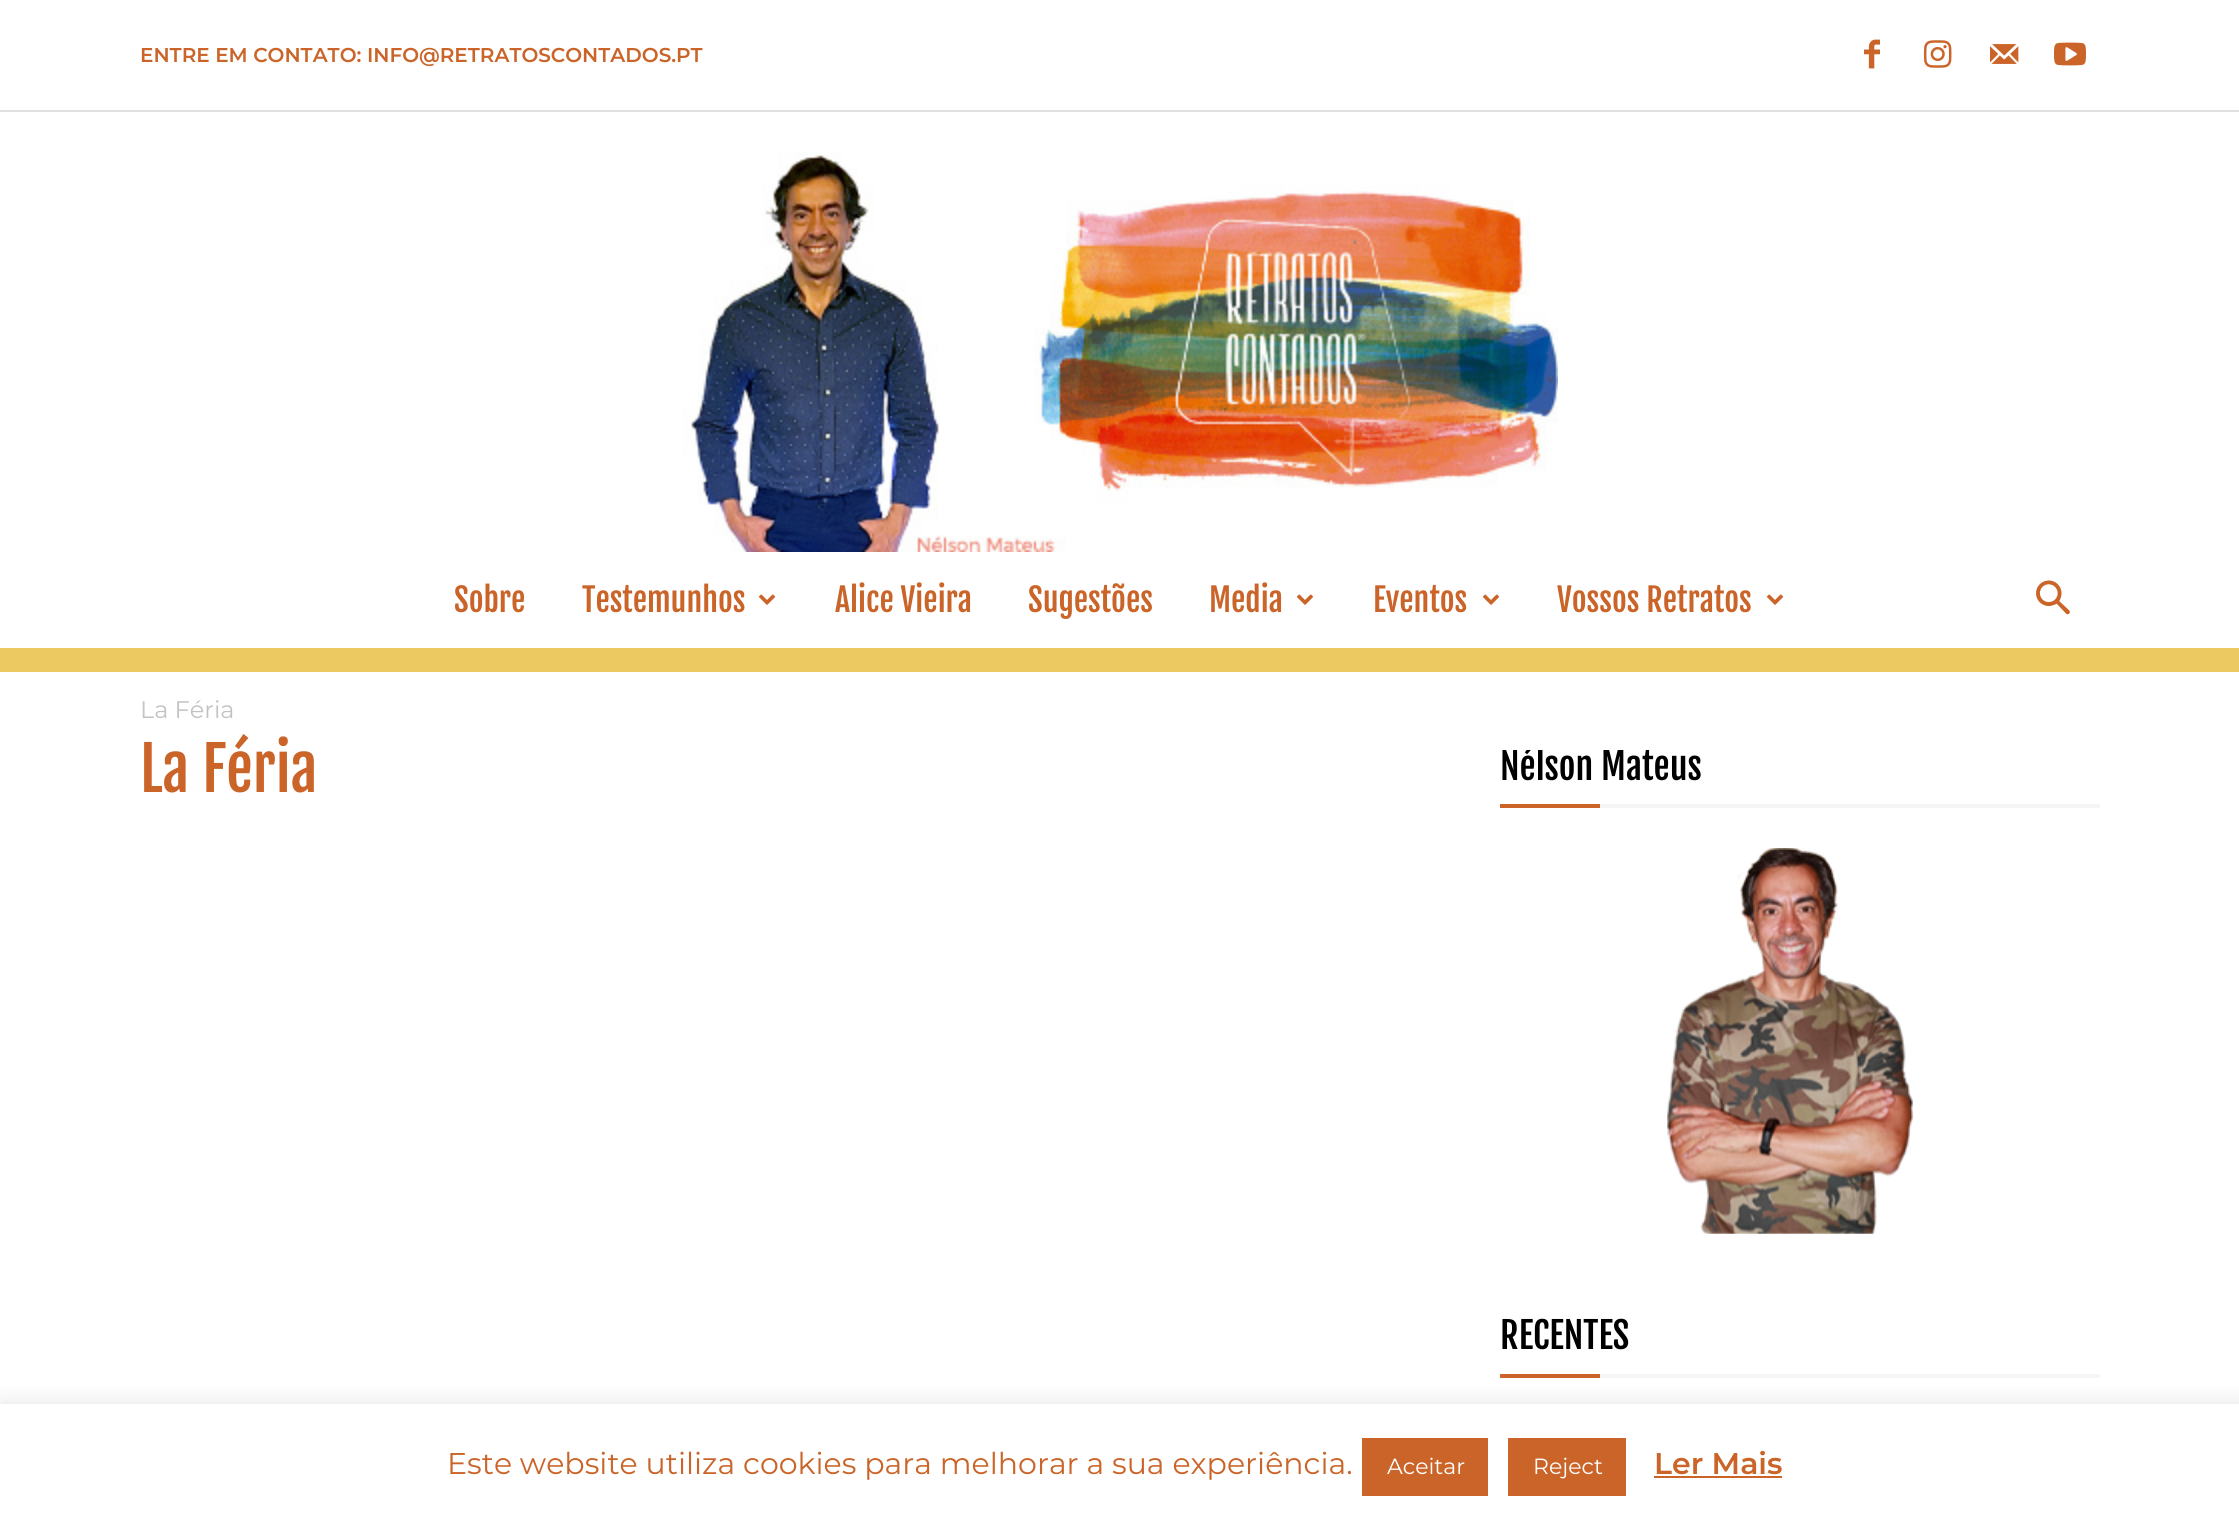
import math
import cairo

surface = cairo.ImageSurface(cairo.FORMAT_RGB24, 2239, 1529)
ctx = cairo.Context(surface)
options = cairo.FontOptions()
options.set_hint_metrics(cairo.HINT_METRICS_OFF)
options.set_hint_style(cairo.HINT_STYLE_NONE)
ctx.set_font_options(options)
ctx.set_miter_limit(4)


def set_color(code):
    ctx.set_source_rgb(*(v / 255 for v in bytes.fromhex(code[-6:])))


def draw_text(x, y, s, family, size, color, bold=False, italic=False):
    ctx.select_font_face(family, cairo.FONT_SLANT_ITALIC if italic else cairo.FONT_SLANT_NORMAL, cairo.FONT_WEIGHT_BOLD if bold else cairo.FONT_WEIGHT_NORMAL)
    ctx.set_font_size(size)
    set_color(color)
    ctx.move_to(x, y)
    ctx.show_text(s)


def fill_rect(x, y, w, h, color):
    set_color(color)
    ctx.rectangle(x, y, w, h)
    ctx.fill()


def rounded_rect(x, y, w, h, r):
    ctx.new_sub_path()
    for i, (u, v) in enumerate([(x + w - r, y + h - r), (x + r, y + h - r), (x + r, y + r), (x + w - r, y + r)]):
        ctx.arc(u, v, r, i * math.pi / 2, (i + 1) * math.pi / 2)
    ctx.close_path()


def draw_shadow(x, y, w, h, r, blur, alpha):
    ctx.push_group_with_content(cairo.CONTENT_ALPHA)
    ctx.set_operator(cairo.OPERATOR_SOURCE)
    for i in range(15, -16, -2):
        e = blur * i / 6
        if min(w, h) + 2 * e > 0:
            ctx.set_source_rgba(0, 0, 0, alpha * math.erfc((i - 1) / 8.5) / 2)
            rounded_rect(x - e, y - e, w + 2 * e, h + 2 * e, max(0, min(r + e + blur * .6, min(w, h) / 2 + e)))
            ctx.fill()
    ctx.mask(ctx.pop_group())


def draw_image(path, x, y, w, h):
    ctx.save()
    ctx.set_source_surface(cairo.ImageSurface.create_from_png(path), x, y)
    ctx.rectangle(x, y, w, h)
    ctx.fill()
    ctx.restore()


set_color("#ffffff")
ctx.paint()
fill_rect(0, 110, 2239, 2, "#e0e0e0")
draw_text(140, 62, "ENTRE EM CONTATO: INFO@RETRATOSCONTADOS.PT", "Montserrat SemiBold", 20, "#ca6428")
draw_image("assets/img1.png", 1864, 39, 16, 30)
draw_image("assets/img2.png", 1924, 40, 28, 28)
draw_image("assets/img3.png", 1990, 44, 29, 20)
draw_image("assets/img4.png", 2054, 42, 32, 24)
draw_image("assets/img5.png", 682, 152, 876, 400)
draw_text(454, 612, "Sobre", "Fjalla One", 32, "#ca6428")
draw_text(582, 612, "Testemunhos", "Fjalla One", 32, "#ca6428")
draw_image("assets/img6.png", 758, 594, 18, 11)
draw_text(835, 612, "Alice Vieira", "Fjalla One", 32, "#ca6428")
draw_text(1028, 612, "Sugestões", "Fjalla One", 32, "#ca6428")
draw_text(1209, 612, "Media", "Fjalla One", 32, "#ca6428")
draw_image("assets/img6.png", 1296, 594, 18, 11)
draw_text(1373, 612, "Eventos", "Fjalla One", 32, "#ca6428")
draw_image("assets/img6.png", 1482, 594, 18, 11)
draw_text(1557, 612, "Vossos Retratos", "Fjalla One", 32, "#ca6428")
draw_image("assets/img6.png", 1766, 594, 18, 11)
draw_image("assets/img7.png", 2036, 580, 34, 35)
fill_rect(0, 648, 2239, 24, "#edca61")
draw_text(140, 718, "La Féria", "Montserrat", 24, "#c3c3c3")
draw_text(140, 792, "La Féria", "Fjalla One", 60, "#ca6428")
ctx.save()
ctx.rectangle(1500, 750, 600, 494)
ctx.clip()
draw_text(1500, 780, "Nélson Mateus", "Fjalla One", 36, "#000000")
ctx.restore()
fill_rect(1500, 804, 100, 4, "#ca6428")
fill_rect(1600, 804, 500, 4, "#f5f5f5")
draw_image("assets/img8.png", 1667, 848, 247, 386)
draw_text(1500, 1349, "RECENTES", "Fjalla One", 36, "#000000")
fill_rect(1500, 1374, 100, 4, "#ca6428")
fill_rect(1600, 1374, 500, 4, "#f5f5f5")
ctx.save()
ctx.rectangle(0, 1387, 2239, 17)
ctx.clip()
set_color("#acabab")
draw_shadow(0, 1402, 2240, 126, 0, 10, 0.3)
ctx.restore()
draw_text(447, 1474, "Este website utiliza cookies para melhorar a sua experiência.", "Montserrat", 30, "#ca6428")
fill_rect(1362, 1438, 126, 58, "#ca6428")
draw_text(1387, 1474, "Aceitar", "Montserrat", 22, "#ffffff")
fill_rect(1508, 1438, 118, 58, "#ca6428")
draw_text(1533, 1474, "Reject", "Montserrat", 22, "#ffffff")
draw_text(1654, 1474, "Ler Mais", "Montserrat SemiBold", 30, "#ca6428")
fill_rect(1654, 1476, 128, 2, "#ca6428")
surface.write_to_png("output.png")
